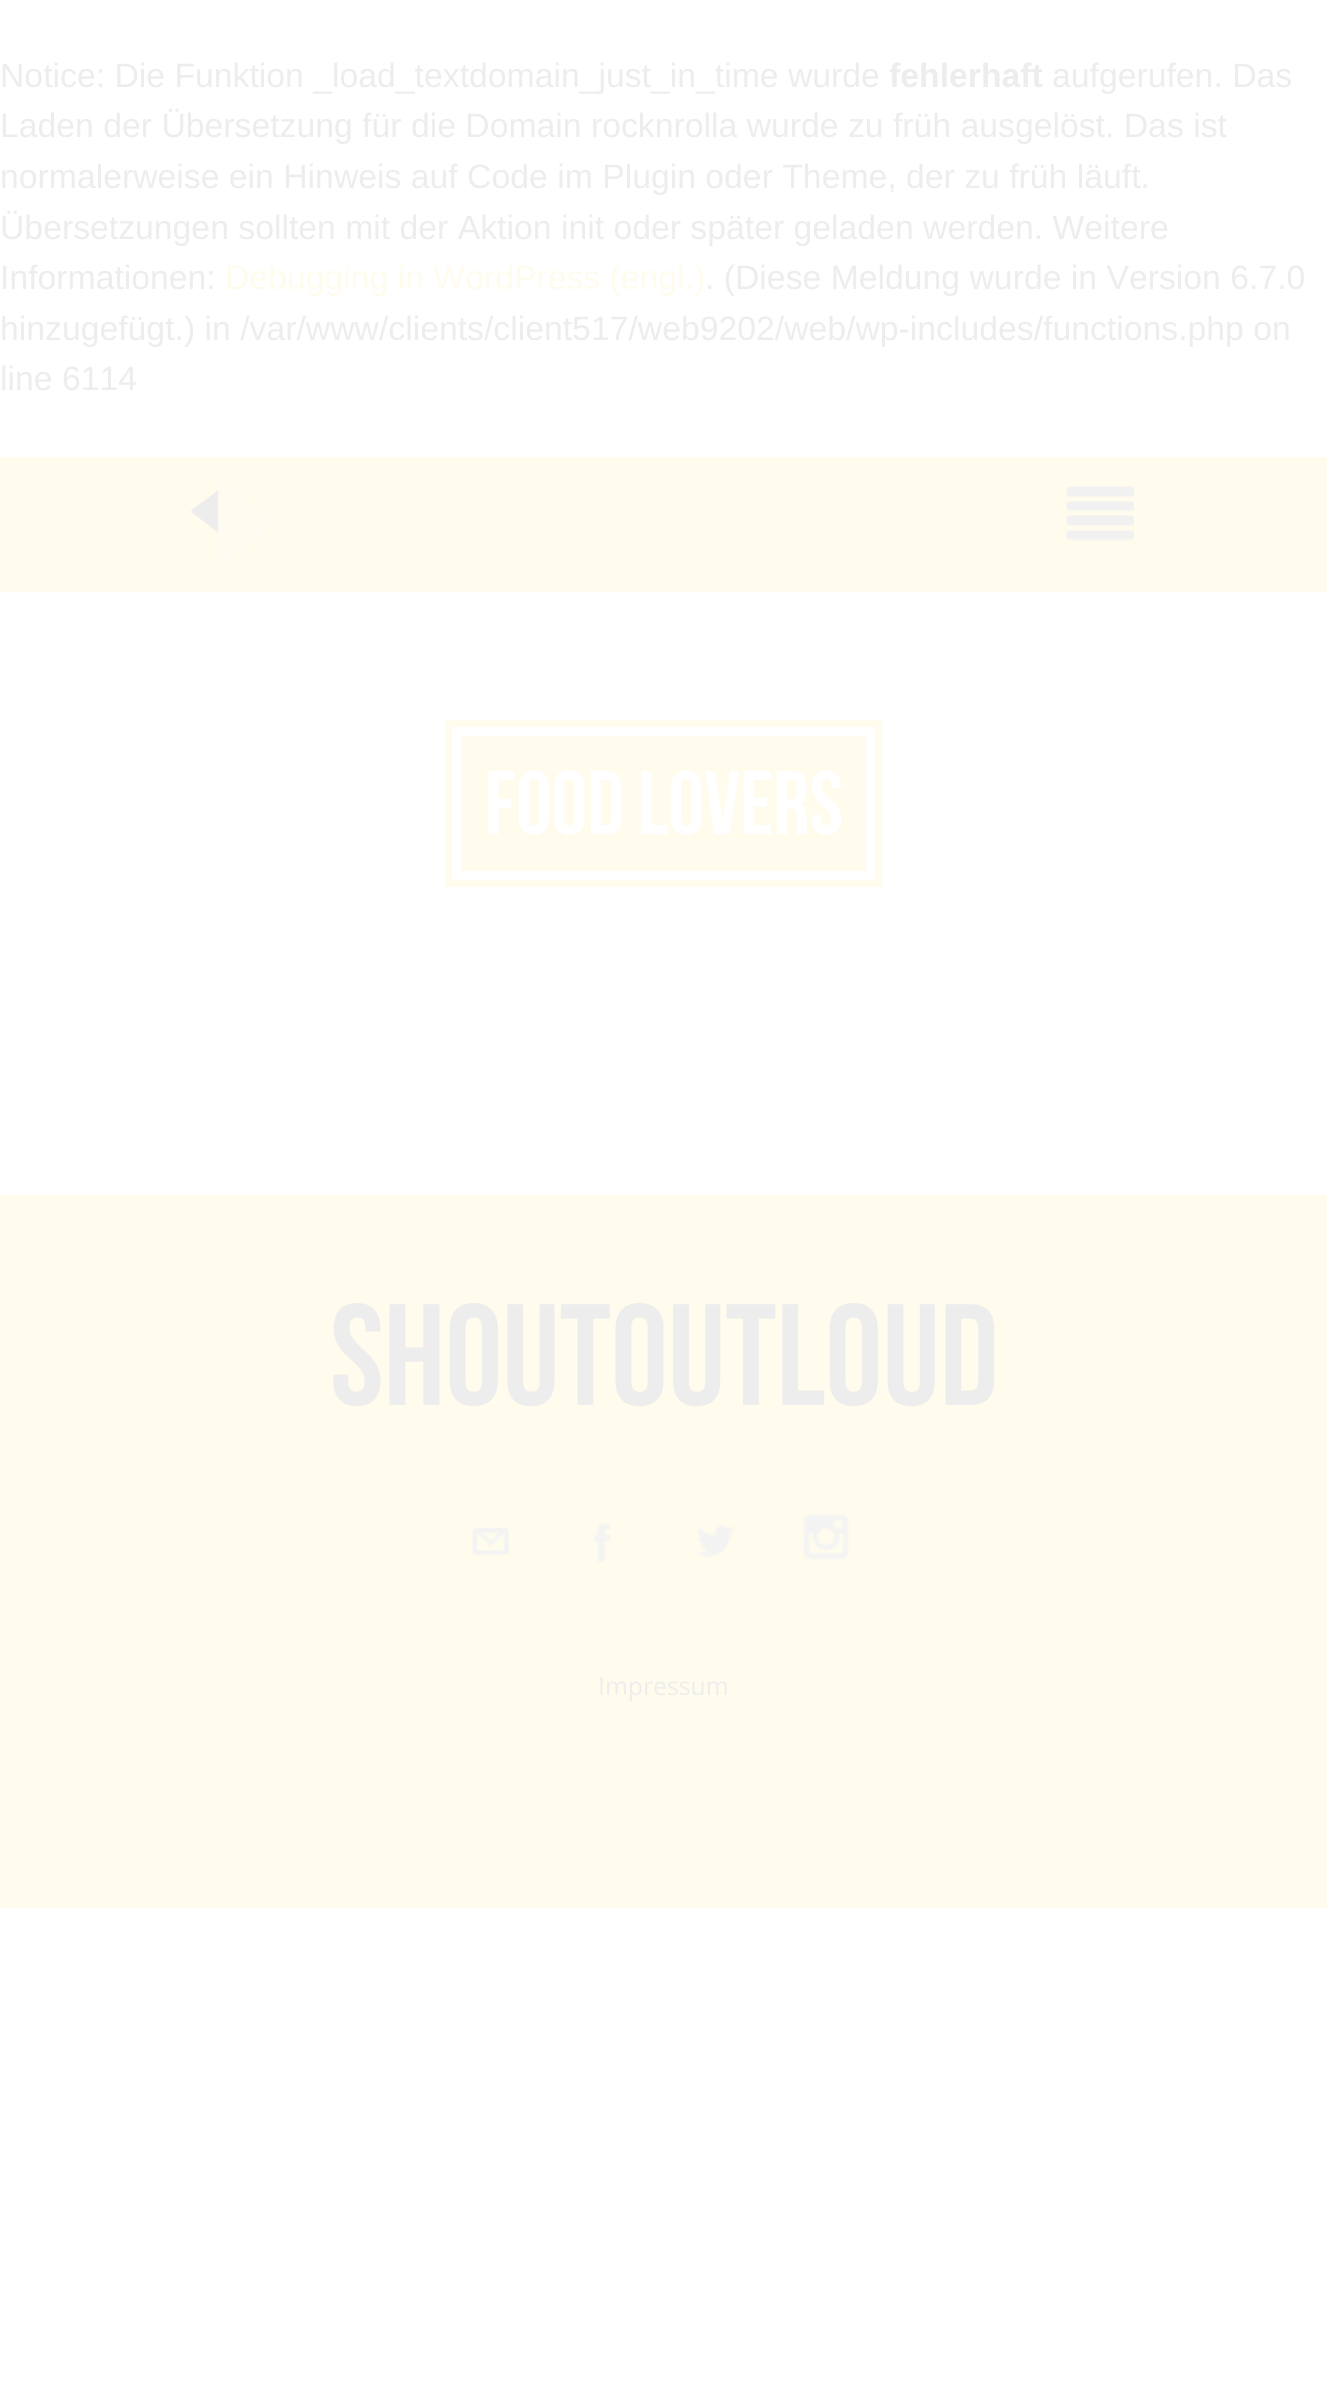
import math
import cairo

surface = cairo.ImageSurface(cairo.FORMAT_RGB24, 1327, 2384)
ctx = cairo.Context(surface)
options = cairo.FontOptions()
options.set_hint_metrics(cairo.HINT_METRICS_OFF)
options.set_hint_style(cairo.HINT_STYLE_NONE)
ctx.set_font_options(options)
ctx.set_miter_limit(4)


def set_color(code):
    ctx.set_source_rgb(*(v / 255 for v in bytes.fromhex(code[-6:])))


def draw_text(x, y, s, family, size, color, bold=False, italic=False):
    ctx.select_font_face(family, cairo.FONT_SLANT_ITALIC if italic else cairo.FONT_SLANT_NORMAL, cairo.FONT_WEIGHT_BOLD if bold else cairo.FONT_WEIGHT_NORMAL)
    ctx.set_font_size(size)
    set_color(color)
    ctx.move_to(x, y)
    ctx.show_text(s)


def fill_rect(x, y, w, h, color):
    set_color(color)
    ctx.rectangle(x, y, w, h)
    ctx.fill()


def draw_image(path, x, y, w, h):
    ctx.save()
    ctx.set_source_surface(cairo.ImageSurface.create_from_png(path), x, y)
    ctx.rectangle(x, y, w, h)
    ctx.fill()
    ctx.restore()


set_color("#ffffff")
ctx.paint()
draw_text(0, 87, "Notice: Die Funktion _load_textdomain_just_in_time wurde", "Liberation Sans", 33.75, "#ededed")
draw_text(889, 87, "fehlerhaft", "Liberation Sans", 33.75, "#ededed", bold=True)
draw_text(1052, 87, "aufgerufen. Das", "Liberation Sans", 33.75, "#ededed")
draw_text(0, 137, "Laden der Übersetzung für die Domain rocknrolla wurde zu früh ausgelöst. Das ist", "Liberation Sans", 33.75, "#ededed")
draw_text(0, 188, "normalerweise ein Hinweis auf Code im Plugin oder Theme, der zu früh läuft.", "Liberation Sans", 33.75, "#ededed")
draw_text(0, 239, "Übersetzungen sollten mit der Aktion init oder später geladen werden. Weitere", "Liberation Sans", 33.75, "#ededed")
draw_text(0, 289, "Informationen:", "Liberation Sans", 33.75, "#ededed")
draw_text(225, 289, "Debugging in WordPress (engl.)", "Liberation Sans", 33.75, "#fffced")
draw_text(705, 289, ". (Diese Meldung wurde in Version 6.7.0", "Liberation Sans", 33.75, "#ededed")
draw_text(0, 340, "hinzugefügt.) in /var/www/clients/client517/web9202/web/wp-includes/functions.php on", "Liberation Sans", 33.75, "#ededed")
draw_text(0, 390, "line 6114", "Liberation Sans", 33.75, "#ededed")
fill_rect(0, 457, 1327, 135, "#fffced")
draw_image("assets/img1.png", 191, 479, 86, 88)
draw_image("assets/img2.png", 1066, 486, 68, 55)
ctx.rectangle(449.5, 723.5, 429, 160)
ctx.set_line_width(7)
ctx.stroke()
ctx.rectangle(456.5, 731.5, 414, 144)
ctx.fill_preserve()
set_color("#ffffff")
ctx.set_line_width(9)
ctx.stroke()
draw_text(485, 834, "Food Lovers", "Bebas Neue", 90, "#ffffff")
fill_rect(0, 1195, 1327, 713, "#fffced")
draw_text(330, 1405, "ShoutOutLoud", "Bebas Neue", 144, "#ededed")
draw_image("assets/img3.png", 472, 1527, 38, 29)
draw_image("assets/img4.png", 593, 1522, 18, 41)
draw_image("assets/img5.png", 695, 1525, 41, 33)
draw_image("assets/img6.png", 802, 1513, 47, 47)
draw_text(598, 1695, "Impressum", "Open Sans", 24.75, "#ededed")
surface.write_to_png("output.png")
